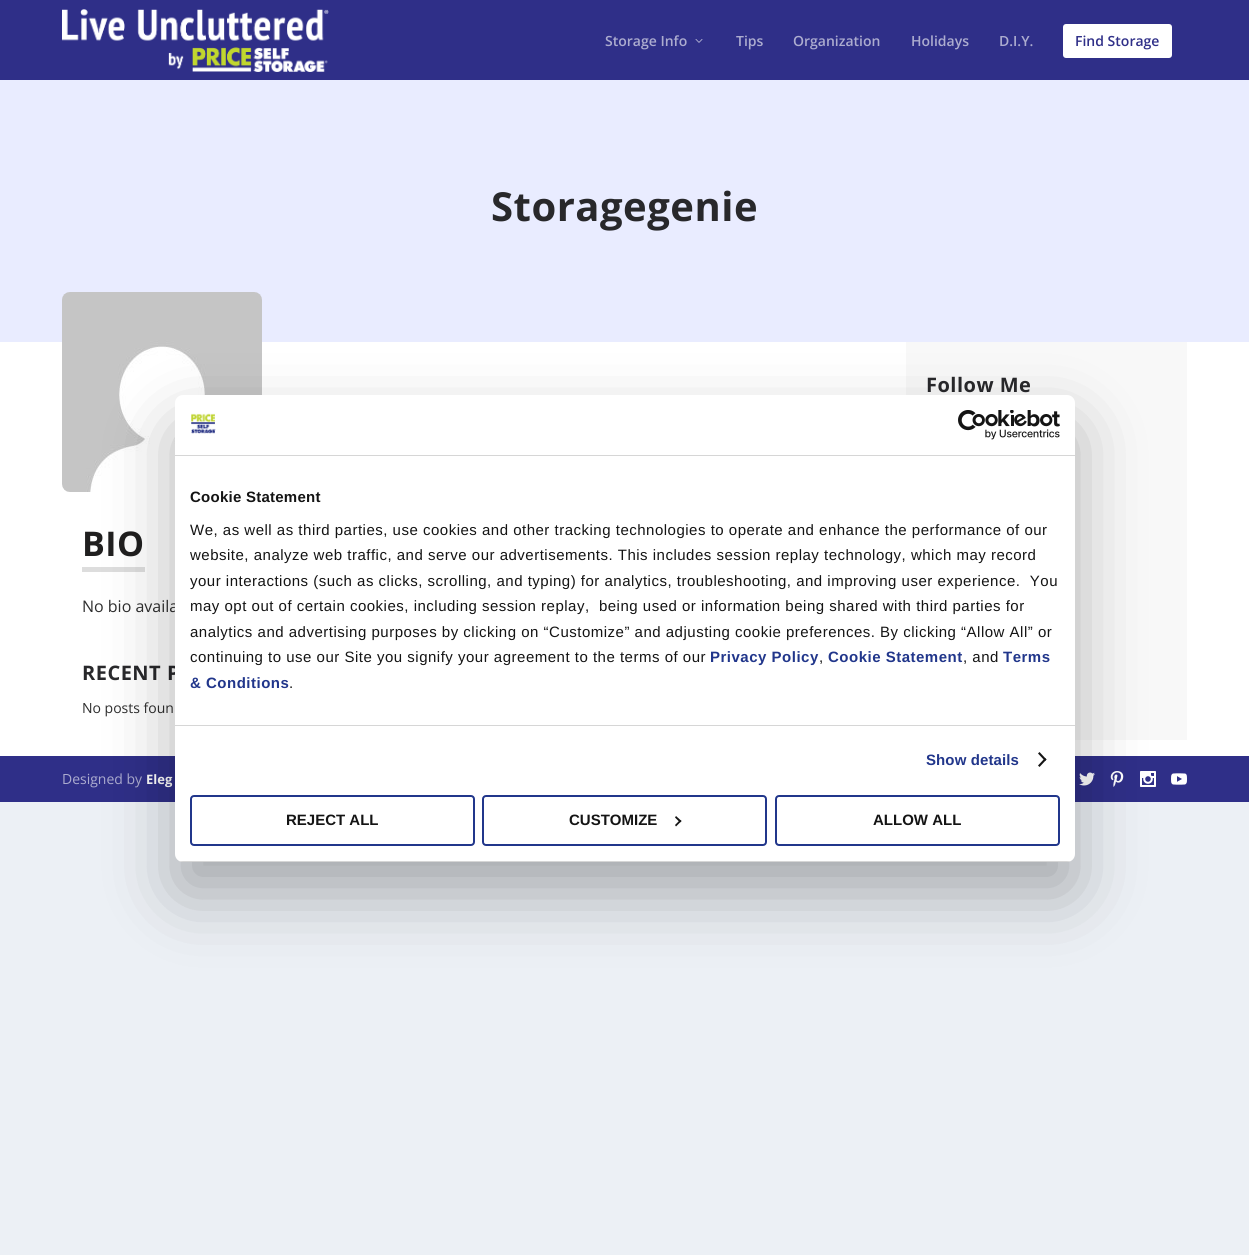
import math
import cairo

surface = cairo.ImageSurface(cairo.FORMAT_RGB24, 1249, 1255)
ctx = cairo.Context(surface)
options = cairo.FontOptions()
options.set_hint_metrics(cairo.HINT_METRICS_OFF)
options.set_hint_style(cairo.HINT_STYLE_NONE)
ctx.set_font_options(options)
ctx.set_miter_limit(4)


def set_color(code):
    ctx.set_source_rgb(*(v / 255 for v in bytes.fromhex(code[-6:])))


def draw_text(x, y, s, family, size, color, bold=False, italic=False):
    ctx.select_font_face(family, cairo.FONT_SLANT_ITALIC if italic else cairo.FONT_SLANT_NORMAL, cairo.FONT_WEIGHT_BOLD if bold else cairo.FONT_WEIGHT_NORMAL)
    ctx.set_font_size(size)
    set_color(color)
    ctx.move_to(x, y)
    ctx.show_text(s)


def draw_spaced(x, y, s, letter, word):
    ctx.move_to(x, y)
    for ch in s:
        ctx.show_text(ch)
        ctx.rel_move_to(letter + word * (ch == ' '), 0)


def fill_rect(x, y, w, h, color):
    set_color(color)
    ctx.rectangle(x, y, w, h)
    ctx.fill()


def rounded_rect(x, y, w, h, r):
    ctx.new_sub_path()
    for i, (u, v) in enumerate([(x + w - r, y + h - r), (x + r, y + h - r), (x + r, y + r), (x + w - r, y + r)]):
        ctx.arc(u, v, r, i * math.pi / 2, (i + 1) * math.pi / 2)
    ctx.close_path()


def draw_shadow(x, y, w, h, r, blur, alpha):
    ctx.push_group_with_content(cairo.CONTENT_ALPHA)
    ctx.set_operator(cairo.OPERATOR_SOURCE)
    for i in range(15, -16, -2):
        e = blur * i / 6
        if min(w, h) + 2 * e > 0:
            ctx.set_source_rgba(0, 0, 0, alpha * math.erfc((i - 1) / 8.5) / 2)
            rounded_rect(x - e, y - e, w + 2 * e, h + 2 * e, max(0, min(r + e + blur * .6, min(w, h) / 2 + e)))
            ctx.fill()
    ctx.mask(ctx.pop_group())


def draw_image(path, x, y, w, h):
    ctx.save()
    ctx.set_source_surface(cairo.ImageSurface.create_from_png(path), x, y)
    ctx.rectangle(x, y, w, h)
    ctx.fill()
    ctx.restore()


set_color("#ecf0f5")
ctx.paint()
fill_rect(0, 342, 1249, 414, "#ffffff")
fill_rect(0, 0, 1249, 80, "#2f2f88")
draw_image("assets/img1.png", 62, 9, 267, 63)
draw_text(605, 46, "Storage Info", "Open Sans SemiBold", 14, "#acaccf")
draw_image("assets/img2.png", 695, 39, 8, 4)
draw_text(736, 46, "Tips", "Open Sans SemiBold", 14, "#acaccf")
draw_text(793, 46, "Organization", "Open Sans SemiBold", 14, "#acaccf")
draw_text(911, 46, "Holidays", "Open Sans SemiBold", 14, "#acaccf")
draw_text(999, 46, "D.I.Y.", "Open Sans SemiBold", 14, "#acaccf")
set_color("#ffffff")
rounded_rect(1063, 24, 109, 34, 3)
ctx.fill()
draw_text(1075, 46, "Find Storage", "Open Sans SemiBold", 14, "#2f2f88")
fill_rect(0, 80, 1249, 262, "#e9ecff")
ctx.select_font_face("Open Sans", cairo.FONT_SLANT_NORMAL, cairo.FONT_WEIGHT_BOLD)
ctx.set_font_size(40)
set_color("#28282b")
draw_spaced(491, 221, "Storagegenie", 0.5, 0)
fill_rect(906, 342, 281, 398, "#f8f8f8")
ctx.set_font_size(20)
set_color("#28282b")
draw_spaced(926, 392, "Follow Me", 0.5, 0)
draw_image("assets/img3.png", 62, 292, 200, 200)
fill_rect(82, 567, 63, 5, "#dddddd")
ctx.set_font_size(34)
set_color("#201f1f")
draw_spaced(82, 556, "BIO", 0.5, 0)
draw_text(82, 612, "No bio availa", "Open Sans", 16, "#2e2e2e")
ctx.select_font_face("Open Sans", cairo.FONT_SLANT_NORMAL, cairo.FONT_WEIGHT_BOLD)
ctx.set_font_size(20)
set_color("#28282b")
draw_spaced(82, 680, "RECENT P", 0.5, 0)
draw_text(82, 713, "No posts foun", "Open Sans", 14, "#2e2e2e")
fill_rect(0, 756, 1249, 46, "#2f2f88")
draw_text(62, 784, "Designed by", "Open Sans", 14, "#acaccf")
draw_text(146, 784, "Eleg", "Open Sans", 13, "#ffffff", bold=True)
draw_image("assets/img4.png", 1079, 772, 16, 14)
draw_image("assets/img5.png", 1110, 771, 14, 16)
draw_image("assets/img6.png", 1140, 771, 16, 16)
draw_image("assets/img7.png", 1171, 773, 16, 12)
set_color("#000000")
draw_shadow(175, 427, 900, 467, 8, 34, 0.3)
set_color("#ffffff")
rounded_rect(175, 395, 900, 467, 8)
ctx.fill()
fill_rect(175, 455, 900, 1, "#d6d6d6")
draw_image("assets/img8.png", 191, 413, 25, 21)
draw_image("assets/img9.png", 958, 410, 102, 30)
fill_rect(175, 725, 900, 1, "#d6d6d6")
ctx.select_font_face("Liberation Sans", cairo.FONT_SLANT_NORMAL, cairo.FONT_WEIGHT_BOLD)
ctx.set_font_size(15)
set_color("#141414")
draw_spaced(190, 502, "Cookie Statement", 0.25, 0)
ctx.select_font_face("Liberation Sans")
draw_spaced(190, 535, "We, as well as third parties, use cookies and other tracking technologies to operate and enhance the performance of our", 0.5, 0)
draw_spaced(190, 560, "website, analyze web traffic, and serve our advertisements. This includes session replay technology, which may record", 0.5, 0)
draw_spaced(190, 586, "your interactions (such as clicks, scrolling, and typing) for analytics, troubleshooting, and improving user experience.  You", 0.5, 0)
draw_spaced(190, 611, "may opt out of certain cookies, including session replay,  being used or information being shared with third parties for", 0.5, 0)
draw_spaced(190, 637, "analytics and advertising purposes by clicking on “Customize” and adjusting cookie preferences. By clicking “Allow All” or", 0.5, 0)
draw_spaced(190, 662, "continuing to use our Site you signify your agreement to the terms of our", 0.5, 0)
ctx.select_font_face("Liberation Sans", cairo.FONT_SLANT_NORMAL, cairo.FONT_WEIGHT_BOLD)
set_color("#21368b")
draw_spaced(710, 662, "Privacy Policy", 0.5, 0)
ctx.select_font_face("Liberation Sans")
set_color("#141414")
draw_spaced(819, 662, ",", 0.5, 0)
ctx.select_font_face("Liberation Sans", cairo.FONT_SLANT_NORMAL, cairo.FONT_WEIGHT_BOLD)
set_color("#21368b")
draw_spaced(828, 662, "Cookie Statement", 0.5, 0)
ctx.select_font_face("Liberation Sans")
set_color("#141414")
draw_spaced(963, 662, ", and", 0.5, 0)
ctx.select_font_face("Liberation Sans", cairo.FONT_SLANT_NORMAL, cairo.FONT_WEIGHT_BOLD)
set_color("#21368b")
draw_spaced(1003, 662, "Terms", 0.5, 0)
draw_spaced(190, 688, "& Conditions", 0.5, 0)
ctx.select_font_face("Liberation Sans")
set_color("#141414")
draw_spaced(289, 688, ".", 0.5, 0)
ctx.select_font_face("Liberation Sans", cairo.FONT_SLANT_NORMAL, cairo.FONT_WEIGHT_BOLD)
set_color("#21368b")
draw_spaced(926, 765, "Show details", 0.1, 0)
set_color("#141414")
ctx.new_path()
ctx.move_to(1039.5, 752)
ctx.line_to(1046.5, 759.5)
ctx.line_to(1045, 761)
ctx.line_to(1038, 753.5)
ctx.close_path()
ctx.fill()
ctx.new_path()
ctx.move_to(1045, 758)
ctx.line_to(1046.5, 759.5)
ctx.line_to(1039.5, 767)
ctx.line_to(1038, 765.5)
ctx.close_path()
ctx.fill()
ctx.save()
rounded_rect(175, 395, 900, 467, 8)
ctx.clip()
fill_rect(175, 861, 900, 1, "#d6d6d6")
ctx.restore()
rounded_rect(191, 796, 283, 49, 3)
set_color("#21368b")
ctx.stroke()
draw_text(286, 825, "REJECT ALL", "Liberation Sans", 15, "#141414", bold=True)
rounded_rect(483, 796, 283, 49, 3)
set_color("#21368b")
ctx.stroke()
draw_text(569, 825, "CUSTOMIZE", "Liberation Sans", 15, "#141414", bold=True)
ctx.new_path()
ctx.move_to(676, 816)
ctx.line_to(681.5, 821)
ctx.line_to(680, 822.5)
ctx.line_to(675, 817.5)
ctx.close_path()
ctx.fill()
ctx.new_path()
ctx.move_to(680, 820)
ctx.line_to(681.5, 821)
ctx.line_to(676, 826.5)
ctx.line_to(675, 825)
ctx.close_path()
ctx.fill()
rounded_rect(776, 796, 283, 49, 3)
set_color("#21368b")
ctx.stroke()
draw_text(873, 825, "ALLOW ALL", "Liberation Sans", 15, "#141414", bold=True)
surface.write_to_png("output.png")
